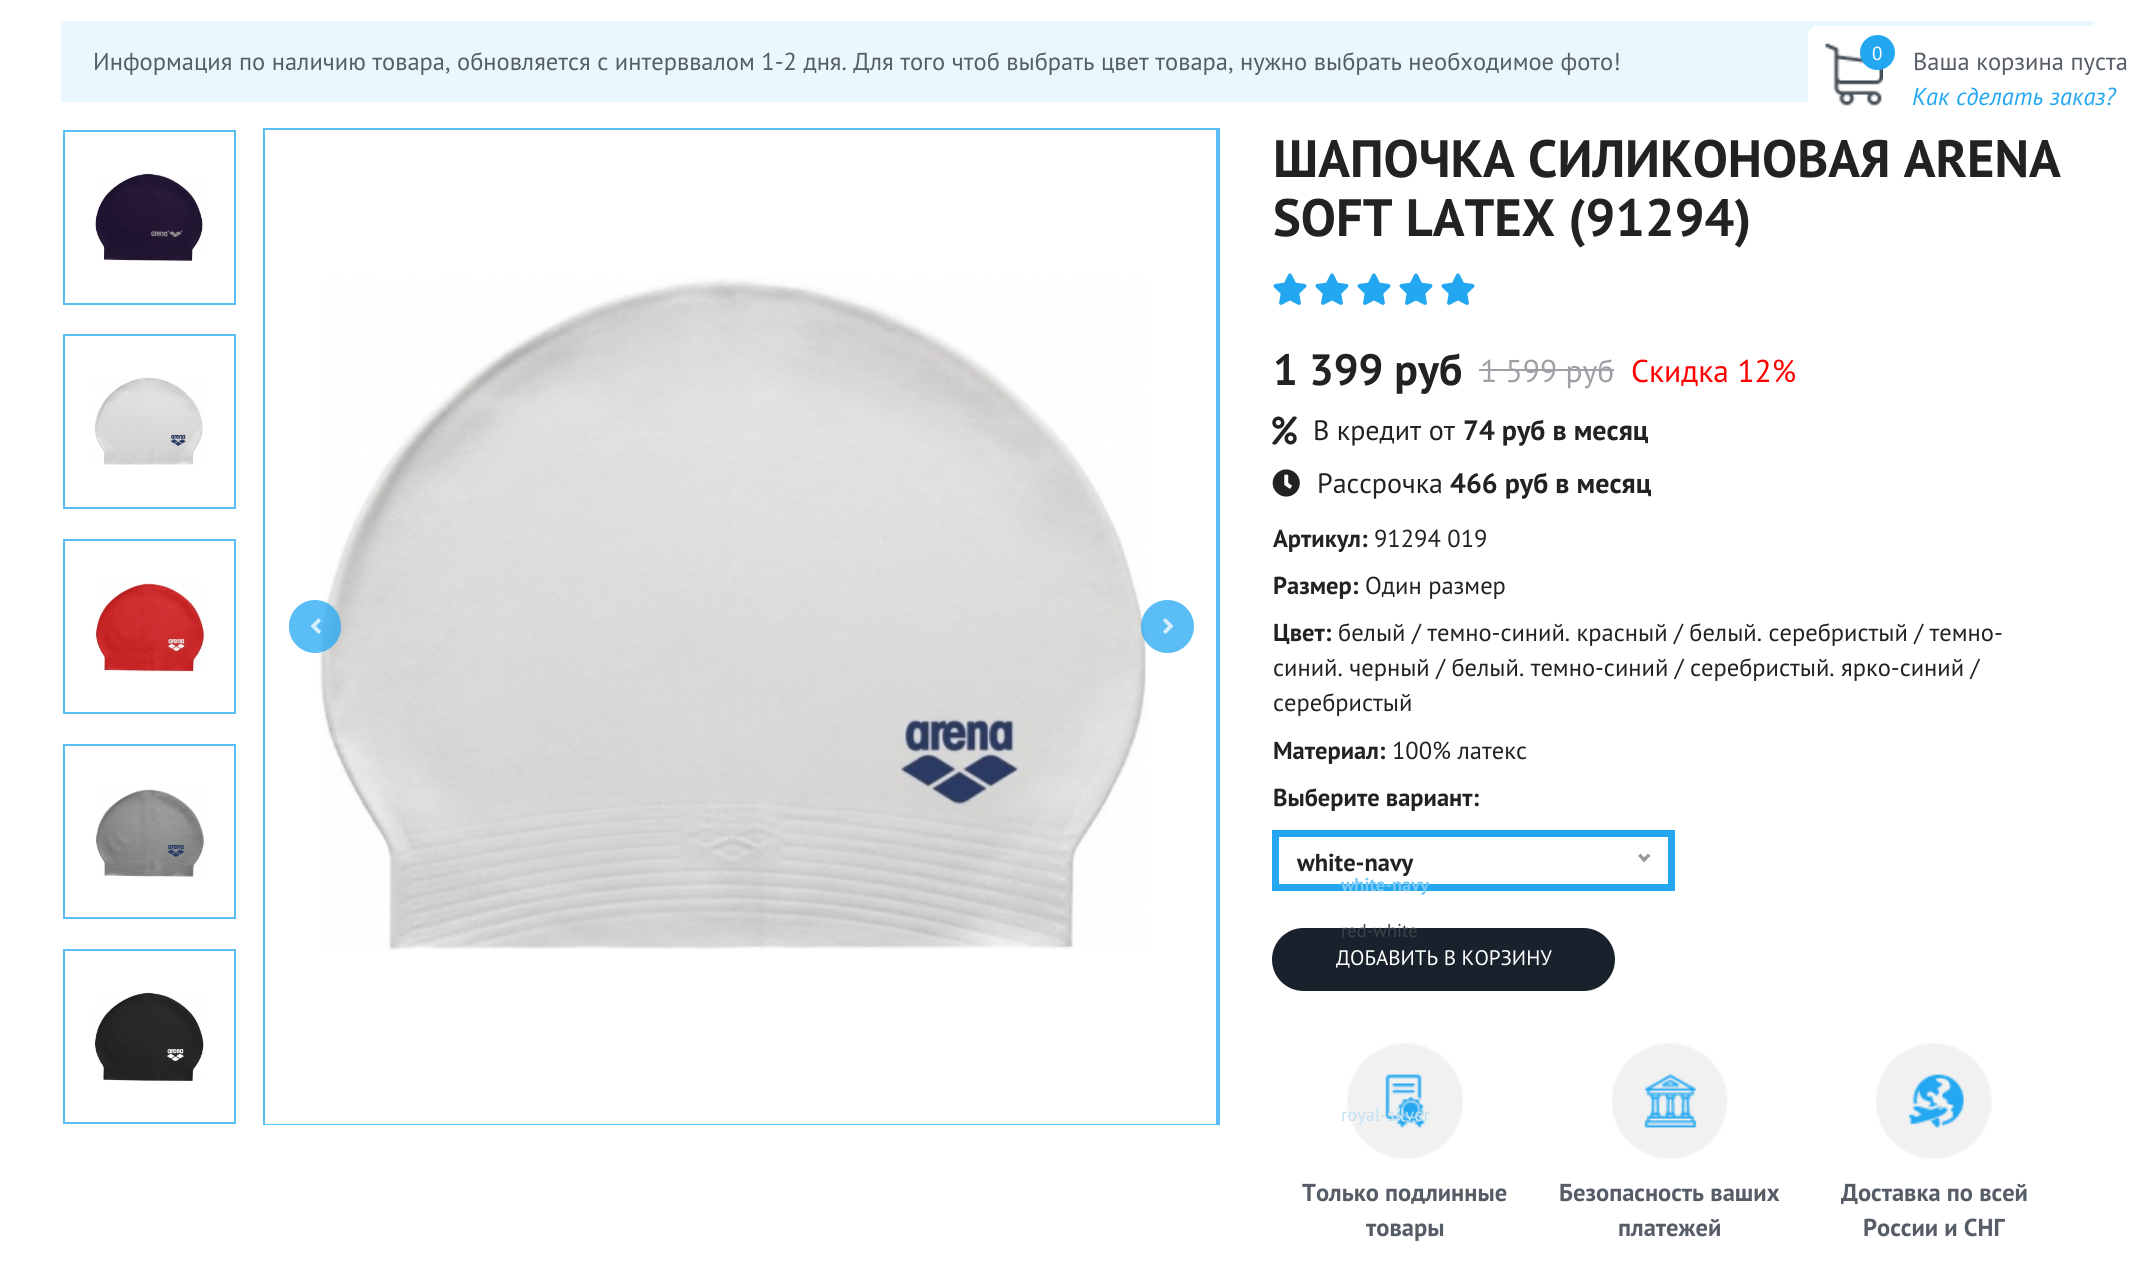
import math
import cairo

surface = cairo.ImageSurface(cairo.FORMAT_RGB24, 2153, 1281)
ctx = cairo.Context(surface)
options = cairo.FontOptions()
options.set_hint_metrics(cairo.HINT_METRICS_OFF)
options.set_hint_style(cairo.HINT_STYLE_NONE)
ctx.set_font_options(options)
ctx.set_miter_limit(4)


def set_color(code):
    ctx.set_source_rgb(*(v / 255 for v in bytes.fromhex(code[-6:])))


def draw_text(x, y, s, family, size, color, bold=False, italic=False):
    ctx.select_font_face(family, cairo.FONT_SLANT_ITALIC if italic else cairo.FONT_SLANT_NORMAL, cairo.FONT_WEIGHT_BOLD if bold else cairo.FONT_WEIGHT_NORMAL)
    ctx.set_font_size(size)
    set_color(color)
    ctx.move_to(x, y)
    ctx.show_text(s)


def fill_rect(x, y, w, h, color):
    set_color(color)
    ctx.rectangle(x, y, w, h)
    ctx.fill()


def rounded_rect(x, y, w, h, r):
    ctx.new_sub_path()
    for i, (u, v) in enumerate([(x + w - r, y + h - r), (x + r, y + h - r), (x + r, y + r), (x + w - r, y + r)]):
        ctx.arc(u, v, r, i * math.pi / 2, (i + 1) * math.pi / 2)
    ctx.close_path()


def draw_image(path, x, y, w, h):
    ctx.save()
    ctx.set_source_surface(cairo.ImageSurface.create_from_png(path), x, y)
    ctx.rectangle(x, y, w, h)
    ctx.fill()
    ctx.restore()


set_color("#ffffff")
ctx.paint()
fill_rect(61, 21, 2032, 81, "#e9f7fe")
set_color("#ffffff")
rounded_rect(1808, 26, 320, 100, 9)
ctx.fill()
draw_image("assets/img1.png", 1824, 43, 59, 63)
set_color("#23a7f1")
ctx.arc(1877.5, 52.5, 17.5, 0, 2 * math.pi)
ctx.fill()
draw_text(1872, 60, "0", "PT Sans", 19, "#ffffff")
draw_text(1913, 70, "Ваша корзина пуста", "PT Sans", 24.5, "#565d67")
draw_text(1912, 105, "Как сделать заказ?", "PT Sans", 24.5, "#23a7f1", italic=True)
draw_text(93, 70, "Информация по наличию товара, обновляется с интерввалом 1-2 дня. Для того чтоб выбрать цвет товара, нужно выбрать необходимое фото!", "PT Sans", 24.5, "#565d67")
ctx.rectangle(64, 131, 171, 173)
set_color("#5abdf4")
ctx.stroke()
draw_image("assets/img2.png", 95, 173, 108, 88)
ctx.rectangle(64, 335, 171, 173)
ctx.stroke()
draw_image("assets/img3.png", 94, 377, 109, 88)
ctx.rectangle(64, 540, 171, 173)
ctx.stroke()
draw_image("assets/img4.png", 95, 582, 110, 90)
ctx.rectangle(64, 745, 171, 173)
ctx.stroke()
draw_image("assets/img5.png", 95, 789, 109, 88)
ctx.rectangle(64, 950, 171, 173)
ctx.stroke()
draw_image("assets/img6.png", 94, 992, 110, 89)
fill_rect(263, 128, 957, 2, "#5abdf4")
fill_rect(1216, 128, 4, 997, "#5abdf4")
fill_rect(263, 1124, 957, 1, "#5abdf4")
fill_rect(263, 128, 2, 997, "#5abdf4")
draw_image("assets/img7.png", 319, 277, 829, 673)
ctx.set_source_rgba(0.137, 0.655, 0.945, 0.75)
rounded_rect(289, 600, 52, 53, 26)
ctx.fill()
draw_image("assets/img8.png", 311, 618, 10, 16)
ctx.arc(1167.5, 626.5, 26.5, 0, 2 * math.pi)
ctx.fill()
draw_image("assets/img9.png", 1163, 618, 10, 16)
draw_text(1273, 177, "ШАПОЧКА СИЛИКОНОВАЯ ARENA", "PT Sans", 52.5, "#222222", bold=True)
draw_text(1273, 236, "SOFT LATEX (91294)", "PT Sans", 52.5, "#222222", bold=True)
draw_image("assets/img10.png", 1273, 273, 34, 32)
draw_image("assets/img10.png", 1315, 273, 34, 32)
draw_image("assets/img10.png", 1357, 273, 34, 32)
draw_image("assets/img10.png", 1399, 273, 34, 32)
draw_image("assets/img10.png", 1441, 273, 34, 32)
draw_text(1273, 385, "1 399 руб", "PT Sans", 43.75, "#222222", bold=True)
draw_text(1480, 382, "1 599 руб", "PT Sans", 31.5, "#9da0a4")
fill_rect(1479, 369, 135, 2, "#9da0a4")
draw_text(1631, 382, "Скидка 12%", "PT Sans", 31.5, "#ff0000")
draw_image("assets/img11.png", 1272, 416, 25, 29)
draw_text(1313, 440, "В кредит от", "PT Sans", 28, "#222222")
draw_text(1463, 440, "74 руб в месяц", "PT Sans", 28, "#222222", bold=True)
draw_image("assets/img12.png", 1272, 469, 28, 28)
draw_text(1317, 493, "Рассрочка", "PT Sans", 28, "#222222")
draw_text(1450, 493, "466 руб в месяц", "PT Sans", 28, "#222222", bold=True)
draw_text(1273, 547, "Артикул:", "PT Sans", 24.5, "#222222", bold=True)
draw_text(1374, 547, "91294 019", "PT Sans", 24.5, "#222222")
draw_text(1273, 594, "Размер:", "PT Sans", 24.5, "#222222", bold=True)
draw_text(1365, 594, "Один размер", "PT Sans", 24.5, "#222222")
draw_text(1273, 641, "Цвет:", "PT Sans", 24.5, "#222222", bold=True)
draw_text(1338, 641, "белый / темно-синий. красный / белый. серебристый / темно-", "PT Sans", 24.5, "#222222")
draw_text(1273, 676, "синий. черный / белый. темно-синий / серебристый. ярко-синий /", "PT Sans", 24.5, "#222222")
draw_text(1273, 711, "серебристый", "PT Sans", 24.5, "#222222")
draw_text(1273, 759, "Материал:", "PT Sans", 24.5, "#222222", bold=True)
draw_text(1392, 759, "100% латекс", "PT Sans", 24.5, "#222222")
draw_text(1273, 806, "Выберите вариант:", "PT Sans", 24.5, "#222222", bold=True)
ctx.rectangle(1275.5, 833.5, 396, 54)
set_color("#23a7f1")
ctx.set_line_width(7)
ctx.stroke()
draw_text(1297, 871, "white-navy", "PT Sans", 24.5, "#222222", bold=True)
set_color("#999999")
ctx.new_path()
ctx.move_to(1648, 853.5)
ctx.line_to(1650.5, 856)
ctx.line_to(1644, 862)
ctx.line_to(1641.5, 860)
ctx.close_path()
ctx.fill()
ctx.new_path()
ctx.move_to(1640.5, 853.5)
ctx.line_to(1646.5, 860)
ctx.line_to(1644, 862)
ctx.line_to(1638, 856)
ctx.close_path()
ctx.fill()
draw_text(1341, 891, "white-navy", "PT Sans", 18.5, "#76c8f6", bold=True)
set_color("#19222c")
rounded_rect(1272, 928, 343, 63, 31.5)
ctx.fill()
draw_text(1341, 937, "red-white", "PT Sans", 18.5, "#3a424a")
draw_image("assets/img13.png", 1347, 1043, 116, 116)
draw_text(1341, 1121, "royal-silver", "PT Sans", 18.5, "#c3e1f2")
draw_text(1336, 965, "ДОБАВИТЬ В КОРЗИНУ", "PT Sans", 21, "#ffffff")
draw_text(1302, 1201, "Только подлинные", "PT Sans", 24.5, "#565d67", bold=True)
draw_text(1366, 1236, "товары", "PT Sans", 24.5, "#565d67", bold=True)
draw_image("assets/img14.png", 1612, 1043, 116, 116)
draw_text(1559, 1201, "Безопасность ваших", "PT Sans", 24.5, "#565d67", bold=True)
draw_text(1618, 1236, "платежей", "PT Sans", 24.5, "#565d67", bold=True)
draw_image("assets/img15.png", 1876, 1043, 116, 116)
draw_text(1841, 1201, "Доставка по всей", "PT Sans", 24.5, "#565d67", bold=True)
draw_text(1863, 1236, "России и СНГ", "PT Sans", 24.5, "#565d67", bold=True)
surface.write_to_png("output.png")
